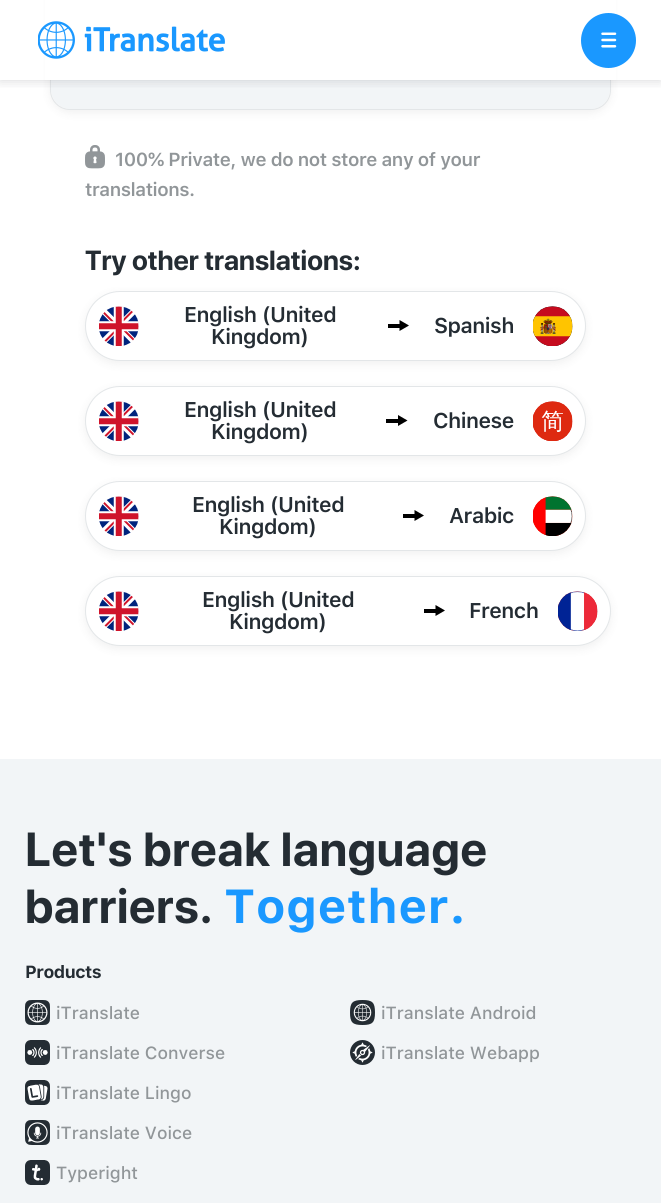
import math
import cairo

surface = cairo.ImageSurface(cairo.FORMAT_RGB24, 661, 1203)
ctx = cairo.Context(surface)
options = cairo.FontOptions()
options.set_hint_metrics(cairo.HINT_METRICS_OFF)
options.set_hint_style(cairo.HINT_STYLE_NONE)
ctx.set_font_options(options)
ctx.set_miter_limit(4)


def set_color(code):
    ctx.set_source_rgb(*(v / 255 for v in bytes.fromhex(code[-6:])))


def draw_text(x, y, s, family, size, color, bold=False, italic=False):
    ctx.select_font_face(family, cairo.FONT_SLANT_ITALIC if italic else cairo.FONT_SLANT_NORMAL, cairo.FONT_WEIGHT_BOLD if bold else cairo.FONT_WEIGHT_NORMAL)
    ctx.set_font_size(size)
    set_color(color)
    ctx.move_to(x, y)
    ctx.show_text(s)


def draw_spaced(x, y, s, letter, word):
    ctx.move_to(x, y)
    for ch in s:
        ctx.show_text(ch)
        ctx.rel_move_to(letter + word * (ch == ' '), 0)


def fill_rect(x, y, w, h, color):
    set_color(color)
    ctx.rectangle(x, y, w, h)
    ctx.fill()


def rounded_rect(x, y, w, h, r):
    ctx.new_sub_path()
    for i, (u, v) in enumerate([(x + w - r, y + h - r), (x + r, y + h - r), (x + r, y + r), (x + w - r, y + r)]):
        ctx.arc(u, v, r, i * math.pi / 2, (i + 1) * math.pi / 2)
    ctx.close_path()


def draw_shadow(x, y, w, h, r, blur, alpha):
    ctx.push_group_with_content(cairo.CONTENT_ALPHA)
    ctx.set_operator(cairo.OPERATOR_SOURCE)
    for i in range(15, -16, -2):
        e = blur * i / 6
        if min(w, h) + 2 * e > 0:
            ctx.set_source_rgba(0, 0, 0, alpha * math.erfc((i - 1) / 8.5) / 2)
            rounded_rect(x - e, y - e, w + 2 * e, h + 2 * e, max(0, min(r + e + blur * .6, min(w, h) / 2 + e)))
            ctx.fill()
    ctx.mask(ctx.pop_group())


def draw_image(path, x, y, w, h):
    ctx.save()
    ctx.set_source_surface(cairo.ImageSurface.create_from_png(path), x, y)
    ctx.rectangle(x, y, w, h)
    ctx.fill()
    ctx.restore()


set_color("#ffffff")
ctx.paint()
set_color("#000000")
draw_shadow(50, -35, 561, 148, 20, 5, 0.06)
rounded_rect(50.5, -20.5, 560, 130, 19.5)
set_color("#e3e6e8")
ctx.set_line_width(1)
ctx.stroke()
set_color("#f2f5f7")
ctx.new_path()
ctx.move_to(51, -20)
ctx.line_to(610, -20)
ctx.line_to(610, 89)
ctx.curve_to(610, 100, 601, 109, 590, 109)
ctx.line_to(71, 109)
ctx.curve_to(60, 109, 51, 100, 51, 89)
ctx.close_path()
ctx.fill()
fill_rect(45, 0, 571, 80, "#ffffff")
ctx.save()
ctx.rectangle(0, 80, 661, 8)
ctx.clip()
set_color("#242c33")
draw_shadow(0, 0, 661, 80, 0, 6, 0.2)
ctx.restore()
draw_image("assets/img1.png", 38, 21, 187, 38)
set_color("#1a98ff")
ctx.arc(608.5, 40.5, 27.5, 0, 2 * math.pi)
ctx.fill()
draw_image("assets/img2.png", 601, 32, 16, 16)
draw_image("assets/img3.png", 85, 145, 20, 24)
ctx.select_font_face("SF Pro Text SemiBold")
ctx.set_font_size(18.75)
set_color("#919699")
draw_spaced(115, 166, "100% Private, we do not store any of your", -0.45, 0)
draw_spaced(85, 196, "translations.", -0.45, 0)
draw_text(85, 270, "Try other translations:", "SF Pro Display", 27.5, "#242c33", bold=True)
set_color("#000000")
draw_shadow(85, 294, 501, 70, 35, 5, 0.06)
set_color("#ffffff")
rounded_rect(85.5, 291.5, 500, 69, 34.5)
ctx.fill_preserve()
set_color("#e3e6e8")
ctx.stroke()
draw_image("assets/img4.png", 99, 306, 40, 40)
ctx.select_font_face("SF Pro Text SemiBold")
ctx.set_font_size(21.25)
set_color("#242c33")
draw_spaced(184, 322, "English (United", -0.5, 0)
draw_spaced(211, 344, "Kingdom)", -0.5, 0)
fill_rect(388, 324, 13, 4, "#000000")
ctx.new_path()
ctx.move_to(409, 325.5)
ctx.line_to(399.5, 331)
ctx.line_to(399.5, 320)
ctx.close_path()
ctx.fill()
set_color("#242c33")
draw_spaced(434, 333, "Spanish", -0.5, 0)
draw_image("assets/img5.png", 533, 306, 40, 40)
set_color("#000000")
draw_shadow(85, 389, 501, 70, 35, 5, 0.06)
set_color("#ffffff")
rounded_rect(85.5, 386.5, 500, 69, 34.5)
ctx.fill_preserve()
set_color("#e3e6e8")
ctx.stroke()
draw_image("assets/img6.png", 99, 401, 40, 40)
set_color("#242c33")
draw_spaced(184, 417, "English (United", -0.5, 0)
draw_spaced(211, 439, "Kingdom)", -0.5, 0)
fill_rect(386, 419, 13, 4, "#000000")
ctx.new_path()
ctx.move_to(407.5, 420.5)
ctx.line_to(398, 426)
ctx.line_to(398, 415)
ctx.close_path()
ctx.fill()
set_color("#242c33")
draw_spaced(433, 428, "Chinese", -0.5, 0)
draw_image("assets/img7.png", 533, 401, 40, 40)
set_color("#000000")
draw_shadow(85, 484, 501, 70, 35, 5, 0.06)
set_color("#ffffff")
rounded_rect(85.5, 481.5, 500, 69, 34.5)
ctx.fill_preserve()
set_color("#e3e6e8")
ctx.stroke()
draw_image("assets/img6.png", 99, 496, 40, 40)
set_color("#242c33")
draw_spaced(192, 512, "English (United", -0.5, 0)
draw_spaced(219, 534, "Kingdom)", -0.5, 0)
fill_rect(403, 514, 13, 4, "#000000")
ctx.new_path()
ctx.move_to(424, 515.5)
ctx.line_to(414.5, 521)
ctx.line_to(414.5, 510)
ctx.close_path()
ctx.fill()
set_color("#242c33")
draw_spaced(449, 523, "Arabic", -0.5, 0)
draw_image("assets/img8.png", 533, 496, 40, 40)
set_color("#000000")
draw_shadow(85, 579, 526, 70, 35, 5, 0.06)
set_color("#ffffff")
rounded_rect(85.5, 576.5, 525, 69, 34.5)
ctx.fill_preserve()
set_color("#e3e6e8")
ctx.stroke()
draw_image("assets/img6.png", 99, 591, 40, 40)
set_color("#242c33")
draw_spaced(202, 607, "English (United", -0.5, 0)
draw_spaced(229, 629, "Kingdom)", -0.5, 0)
fill_rect(424, 609, 13, 4, "#000000")
ctx.new_path()
ctx.move_to(445, 610.5)
ctx.line_to(435.5, 616)
ctx.line_to(435.5, 605)
ctx.close_path()
ctx.fill()
set_color("#242c33")
draw_spaced(469, 618, "French", -0.5, 0)
draw_image("assets/img9.png", 558, 591, 40, 40)
fill_rect(0, 759, 661, 444, "#f2f5f7")
ctx.select_font_face("SF Pro Display", cairo.FONT_SLANT_NORMAL, cairo.FONT_WEIGHT_BOLD)
ctx.set_font_size(47.5)
set_color("#242c33")
draw_spaced(25, 866, "Let's break language", 0.75, 0)
draw_spaced(25, 923, "barriers.", 0.75, 0)
ctx.select_font_face("SF Pro Text", cairo.FONT_SLANT_NORMAL, cairo.FONT_WEIGHT_BOLD)
set_color("#1a98ff")
draw_spaced(224, 923, "Together.", 0.75, 0)
ctx.set_font_size(17.5)
set_color("#242c33")
draw_spaced(25, 978, "Products", -0.5, 0)
draw_image("assets/img10.png", 25, 1000, 25, 25)
draw_text(56, 1019, "iTranslate", "SF Pro Text Medium", 17.5, "#919699")
draw_image("assets/img11.png", 25, 1040, 25, 25)
draw_text(56, 1059, "iTranslate Converse", "SF Pro Text Medium", 17.5, "#919699")
draw_image("assets/img12.png", 25, 1080, 25, 25)
draw_text(56, 1099, "iTranslate Lingo", "SF Pro Text Medium", 17.5, "#919699")
draw_image("assets/img13.png", 25, 1120, 25, 25)
draw_text(56, 1139, "iTranslate Voice", "SF Pro Text Medium", 17.5, "#919699")
draw_image("assets/img14.png", 25, 1160, 25, 25)
draw_text(56, 1179, "Typeright", "SF Pro Text Medium", 17.5, "#919699")
draw_image("assets/img15.png", 350, 1000, 25, 25)
draw_text(381, 1019, "iTranslate Android", "SF Pro Text Medium", 17.5, "#919699")
draw_image("assets/img16.png", 350, 1040, 25, 25)
draw_text(381, 1059, "iTranslate Webapp", "SF Pro Text Medium", 17.5, "#919699")
surface.write_to_png("output.png")
